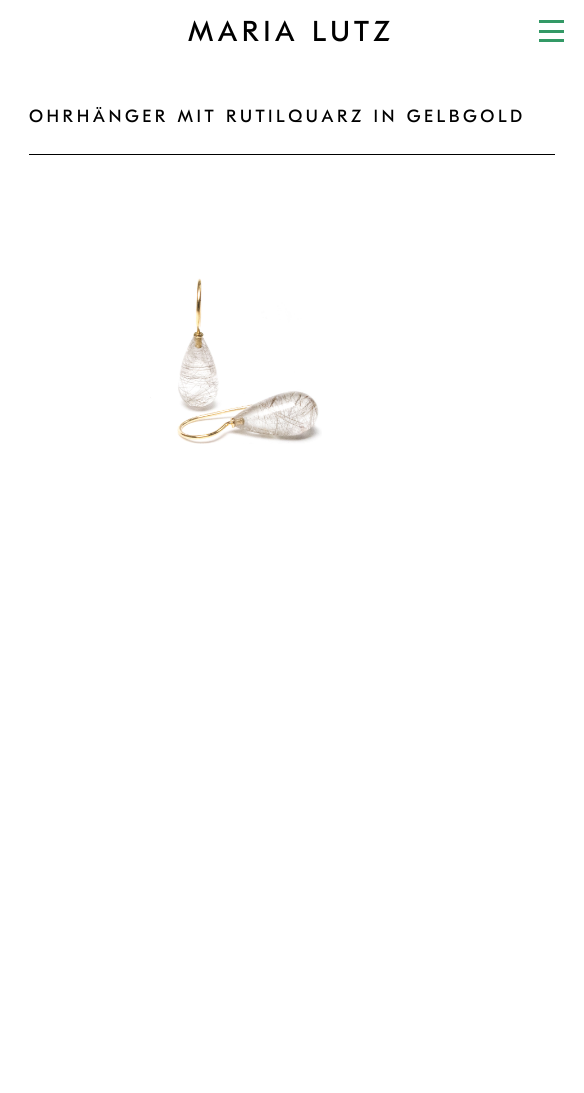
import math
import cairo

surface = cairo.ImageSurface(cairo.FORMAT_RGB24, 584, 1093)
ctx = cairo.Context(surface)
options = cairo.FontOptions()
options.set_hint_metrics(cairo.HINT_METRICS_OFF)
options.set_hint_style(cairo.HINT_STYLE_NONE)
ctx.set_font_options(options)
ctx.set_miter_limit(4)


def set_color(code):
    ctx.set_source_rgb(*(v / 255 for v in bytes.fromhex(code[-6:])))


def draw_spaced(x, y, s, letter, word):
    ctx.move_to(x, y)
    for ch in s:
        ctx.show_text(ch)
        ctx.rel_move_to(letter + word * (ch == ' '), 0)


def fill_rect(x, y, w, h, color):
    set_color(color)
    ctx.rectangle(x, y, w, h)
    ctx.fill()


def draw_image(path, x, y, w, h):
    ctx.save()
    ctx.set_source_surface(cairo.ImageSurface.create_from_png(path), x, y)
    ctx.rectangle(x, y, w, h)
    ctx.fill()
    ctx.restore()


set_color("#ffffff")
ctx.paint()
ctx.select_font_face("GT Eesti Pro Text")
ctx.set_font_size(28.75)
set_color("#000000")
draw_spaced(188, 41, "MARIA LUTZ", 4.25, 0)
fill_rect(539, 20, 25, 3, "#339966")
fill_rect(539, 30, 25, 3, "#339966")
fill_rect(539, 39, 25, 3, "#339966")
ctx.set_font_size(17.6)
set_color("#000000")
draw_spaced(29, 122, "OHRHÄNGER MIT RUTILQUARZ IN GELBGOLD", 3.5, 0)
fill_rect(29, 154, 526, 1, "#000000")
draw_image("assets/img1.png", 150, 278, 172, 166)
surface.write_to_png("output.png")
